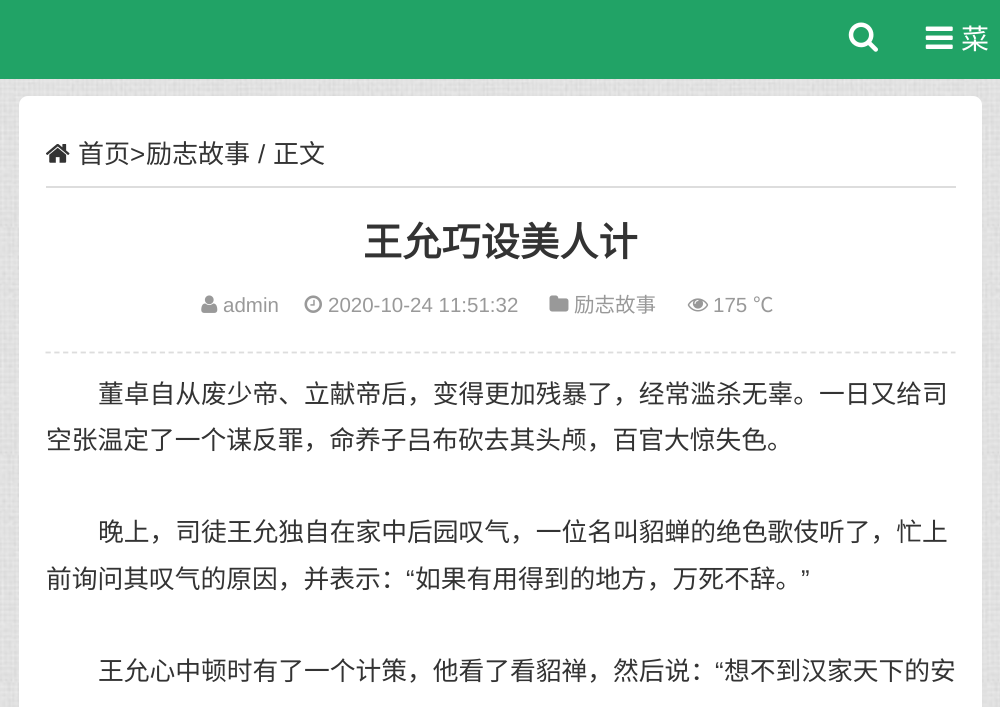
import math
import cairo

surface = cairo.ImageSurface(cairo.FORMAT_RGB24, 1000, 707)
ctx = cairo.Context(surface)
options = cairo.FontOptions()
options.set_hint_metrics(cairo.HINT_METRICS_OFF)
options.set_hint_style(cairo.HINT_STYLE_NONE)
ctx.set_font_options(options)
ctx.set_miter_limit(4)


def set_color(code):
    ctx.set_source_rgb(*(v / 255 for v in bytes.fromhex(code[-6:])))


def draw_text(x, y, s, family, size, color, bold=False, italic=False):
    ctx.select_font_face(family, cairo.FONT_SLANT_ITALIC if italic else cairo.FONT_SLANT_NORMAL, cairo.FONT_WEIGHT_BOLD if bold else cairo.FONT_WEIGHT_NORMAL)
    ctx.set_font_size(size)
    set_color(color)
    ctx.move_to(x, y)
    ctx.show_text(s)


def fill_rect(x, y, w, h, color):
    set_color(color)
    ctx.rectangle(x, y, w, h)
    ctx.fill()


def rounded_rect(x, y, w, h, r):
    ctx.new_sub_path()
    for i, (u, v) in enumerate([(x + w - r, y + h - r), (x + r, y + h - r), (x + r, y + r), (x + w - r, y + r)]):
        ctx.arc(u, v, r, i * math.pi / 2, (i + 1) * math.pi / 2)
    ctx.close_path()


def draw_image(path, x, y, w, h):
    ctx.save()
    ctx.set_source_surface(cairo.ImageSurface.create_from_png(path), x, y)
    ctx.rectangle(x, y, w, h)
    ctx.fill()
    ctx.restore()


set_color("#ffffff")
ctx.paint()
draw_image("assets/img1.png", 0, 79, 1000, 628)
fill_rect(0, 0, 1000, 79, "#21a366")
draw_image("assets/img2.png", 848, 22, 30, 30)
draw_image("assets/img3.png", 925, 26, 28, 23)
draw_text(961, 49, "菜", "Noto Sans CJK SC", 28, "#ffffff")
rounded_rect(19, 96, 963, 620, 9)
ctx.fill()
fill_rect(46, 186, 910, 2, "#dddddd")
draw_image("assets/img4.png", 46, 144, 24, 19)
draw_text(78, 163, "首页", "Noto Sans CJK SC", 26, "#333333")
draw_text(130, 163, ">", "Liberation Sans", 26, "#333333")
draw_text(146, 163, "励志故事", "Noto Sans CJK SC", 26, "#333333")
draw_text(258, 163, "/", "Liberation Sans", 26, "#333333")
draw_text(273, 163, "正文", "Noto Sans CJK SC", 26, "#333333")
ctx.new_path()
ctx.move_to(45.5, 352.5)
ctx.line_to(955.5, 352.5)
set_color("#dddddd")
ctx.set_line_width(1.8)
ctx.set_dash([5.25, 3.54])
ctx.stroke()
draw_text(363, 256, "王允巧设美人计", "Noto Sans CJK SC", 39.25, "#333333", bold=True)
draw_image("assets/img5.png", 201, 295, 17, 18)
draw_text(223, 312, "admin", "Liberation Sans", 20.5, "#999999")
draw_image("assets/img6.png", 304, 295, 18, 18)
draw_text(328, 312, "2020-10-24 11:51:32", "Liberation Sans", 20.5, "#999999")
draw_image("assets/img7.png", 549, 295, 20, 17)
draw_text(574, 312, "励志故事", "Noto Sans CJK SC", 20.5, "#999999")
draw_image("assets/img8.png", 687, 298, 22, 14)
draw_text(713, 312, "175", "Liberation Sans", 20.5, "#999999")
draw_text(753, 312, "℃", "Noto Sans CJK SC", 20.5, "#999999")
draw_text(98, 403, "董卓自从废少帝、立献帝后，变得更加残暴了，经常滥杀无辜。一日又给司", "Noto Sans CJK SC", 25.75, "#333333")
draw_text(46, 449, "空张温定了一个谋反罪，命养子吕布砍去其头颅，百官大惊失色。", "Noto Sans CJK SC", 25.75, "#333333")
draw_text(98, 541, "晚上，司徒王允独自在家中后园叹气，一位名叫貂蝉的绝色歌伎听了，忙上", "Noto Sans CJK SC", 25.75, "#333333")
draw_text(46, 588, "前询问其叹气的原因，并表示：", "Noto Sans CJK SC", 25.75, "#333333")
draw_text(406, 588, "“", "Liberation Sans", 25.75, "#333333")
draw_text(415, 588, "如果有用得到的地方，万死不辞。", "Noto Sans CJK SC", 25.75, "#333333")
draw_text(801, 588, "”", "Liberation Sans", 25.75, "#333333")
draw_text(98, 680, "王允心中顿时有了一个计策，他看了看貂禅，然后说：", "Noto Sans CJK SC", 25.75, "#333333")
draw_text(715, 680, "“", "Liberation Sans", 25.75, "#333333")
draw_text(724, 680, "想不到汉家天下的安", "Noto Sans CJK SC", 25.75, "#333333")
surface.write_to_png("output.png")
